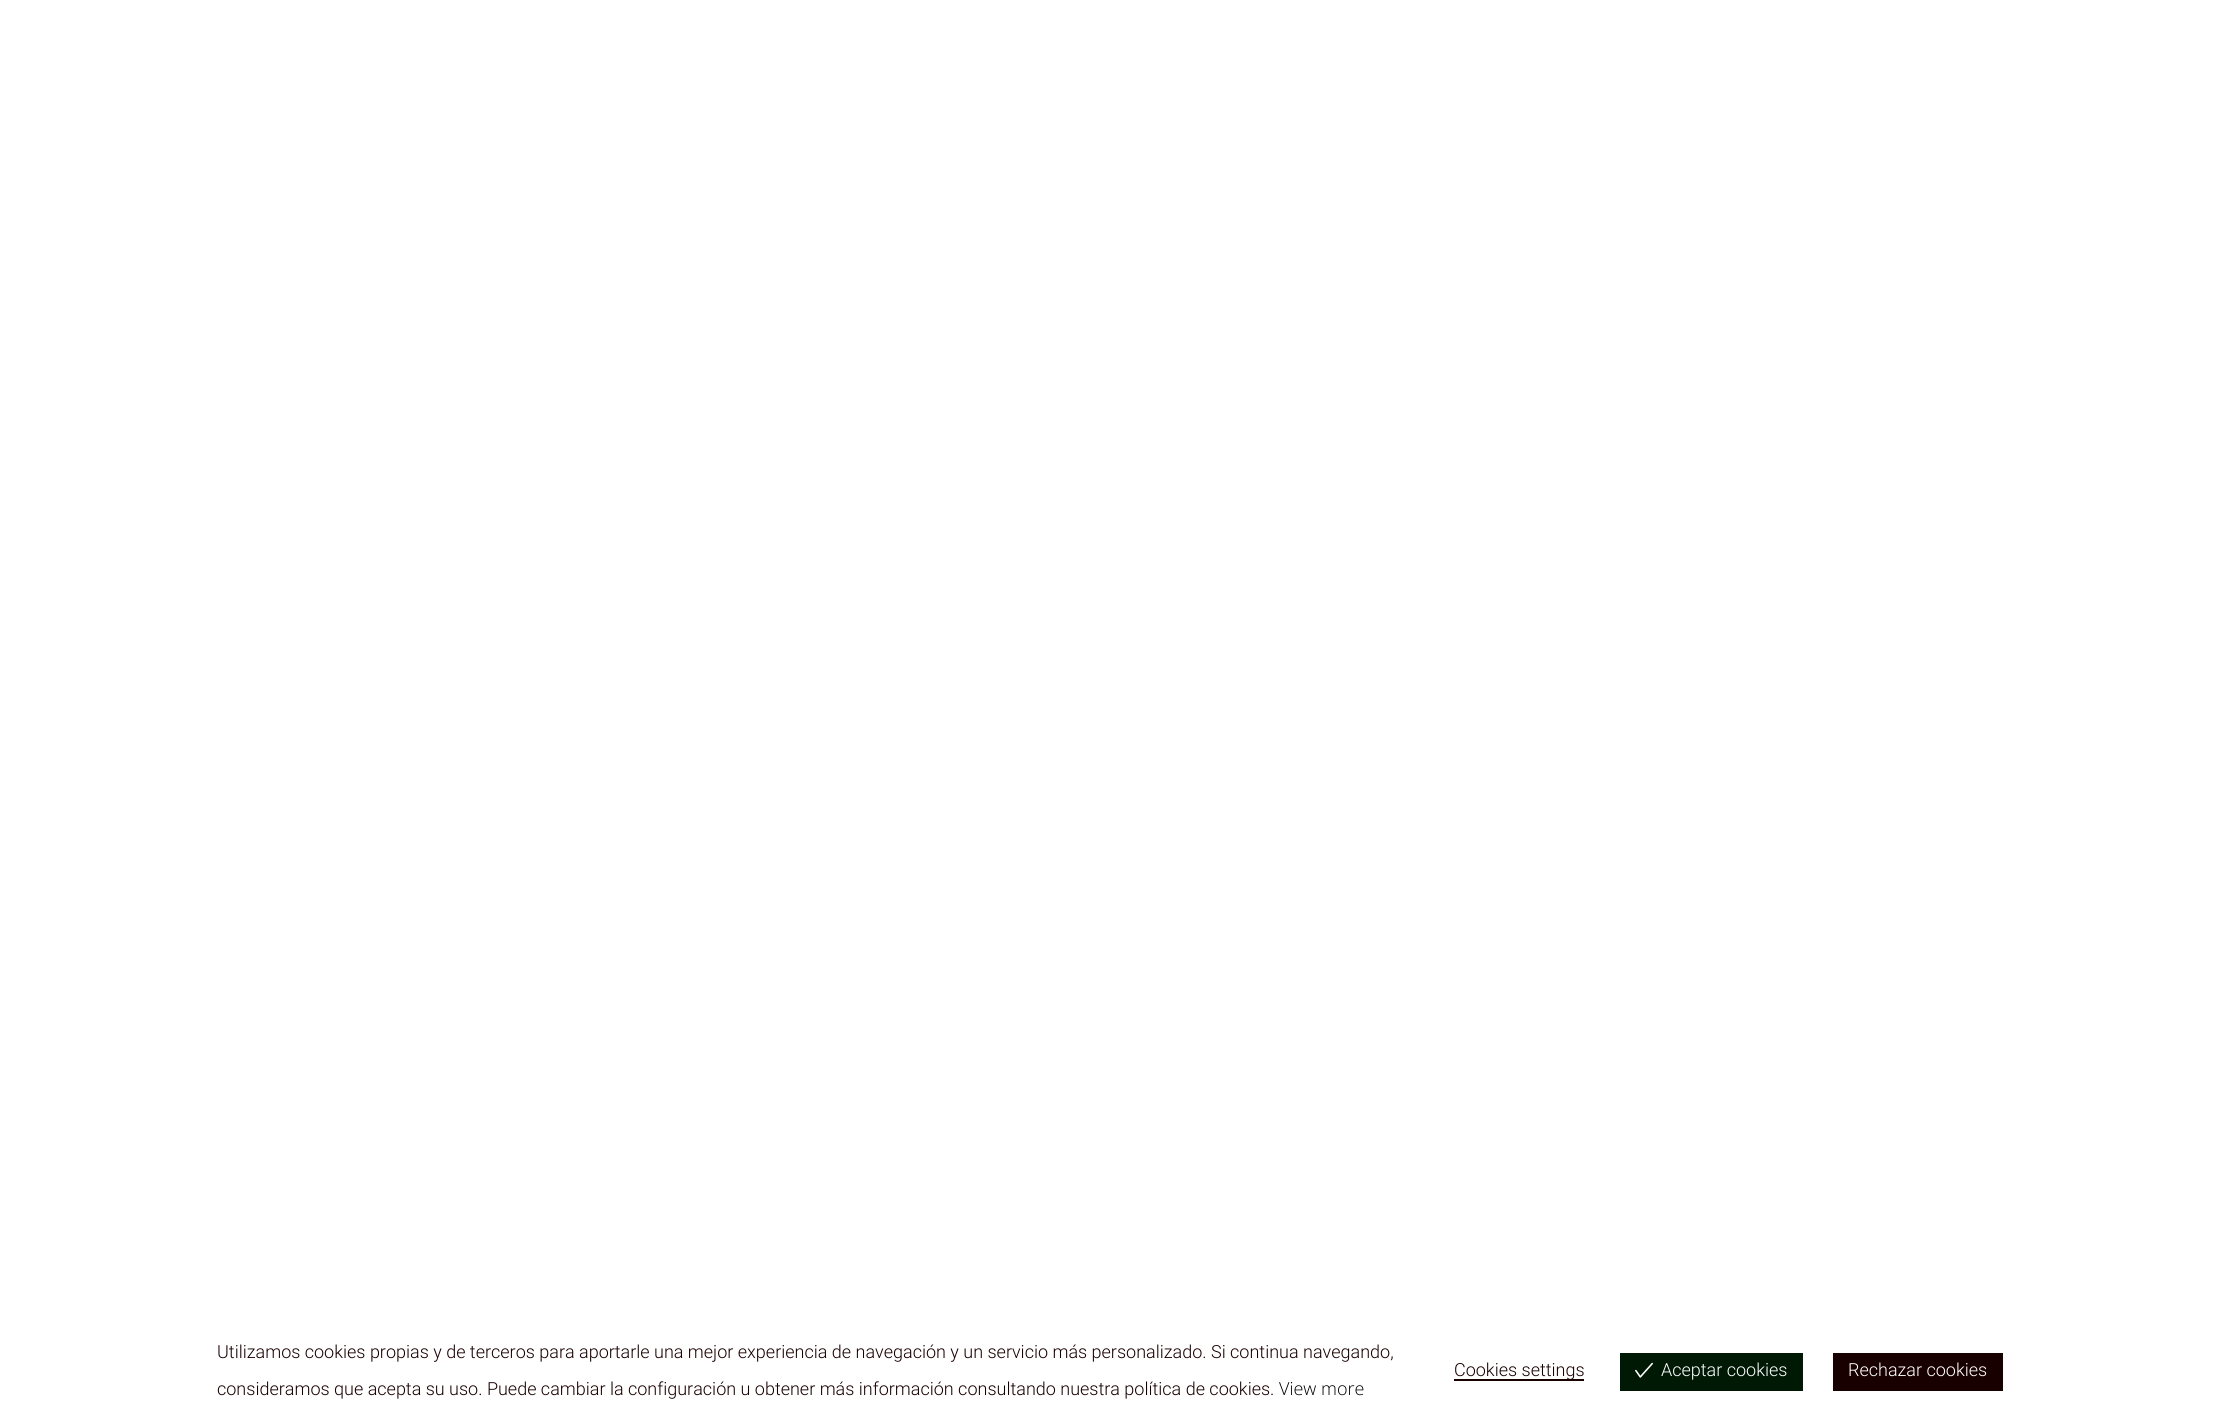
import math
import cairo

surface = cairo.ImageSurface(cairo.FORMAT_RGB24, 2233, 1415)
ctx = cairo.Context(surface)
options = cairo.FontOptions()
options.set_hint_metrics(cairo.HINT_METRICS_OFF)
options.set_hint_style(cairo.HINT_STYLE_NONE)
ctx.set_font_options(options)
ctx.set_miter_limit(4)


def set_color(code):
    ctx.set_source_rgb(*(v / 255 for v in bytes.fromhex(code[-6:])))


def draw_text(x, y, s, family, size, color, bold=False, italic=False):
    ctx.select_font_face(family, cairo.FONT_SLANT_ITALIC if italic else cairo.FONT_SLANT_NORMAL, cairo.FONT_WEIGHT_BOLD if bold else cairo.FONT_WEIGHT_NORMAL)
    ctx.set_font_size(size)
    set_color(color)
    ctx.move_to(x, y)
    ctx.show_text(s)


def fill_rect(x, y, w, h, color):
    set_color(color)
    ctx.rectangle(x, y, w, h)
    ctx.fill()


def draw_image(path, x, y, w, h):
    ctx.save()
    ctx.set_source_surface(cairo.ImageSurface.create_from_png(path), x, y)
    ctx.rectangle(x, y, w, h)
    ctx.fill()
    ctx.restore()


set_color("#ffffff")
ctx.paint()
draw_text(217, 1358, "Utilizamos cookies propias y de terceros para aportarle una mejor experiencia de navegación y un servicio más personalizado. Si continua navegando,", "Roboto Light", 18, "#190000")
draw_text(217, 1395, "consideramos que acepta su uso. Puede cambiar la configuración u obtener más información consultando nuestra política de cookies.", "Roboto Light", 18, "#190000")
draw_text(1279, 1395, "View more", "Open Sans Light", 18, "#000001")
fill_rect(1454, 1379, 130, 2, "#190000")
draw_text(1454, 1376, "Cookies settings", "Roboto Light", 18, "#190000")
fill_rect(1620, 1353, 183, 38, "#001904")
draw_image("assets/img1.png", 1635, 1362, 18, 16)
draw_text(1661, 1376, "Aceptar cookies", "Roboto Light", 18, "#ffffff")
fill_rect(1833, 1353, 170, 38, "#190000")
draw_text(1848, 1376, "Rechazar cookies", "Roboto Light", 18, "#ffffff")
surface.write_to_png("output.png")
